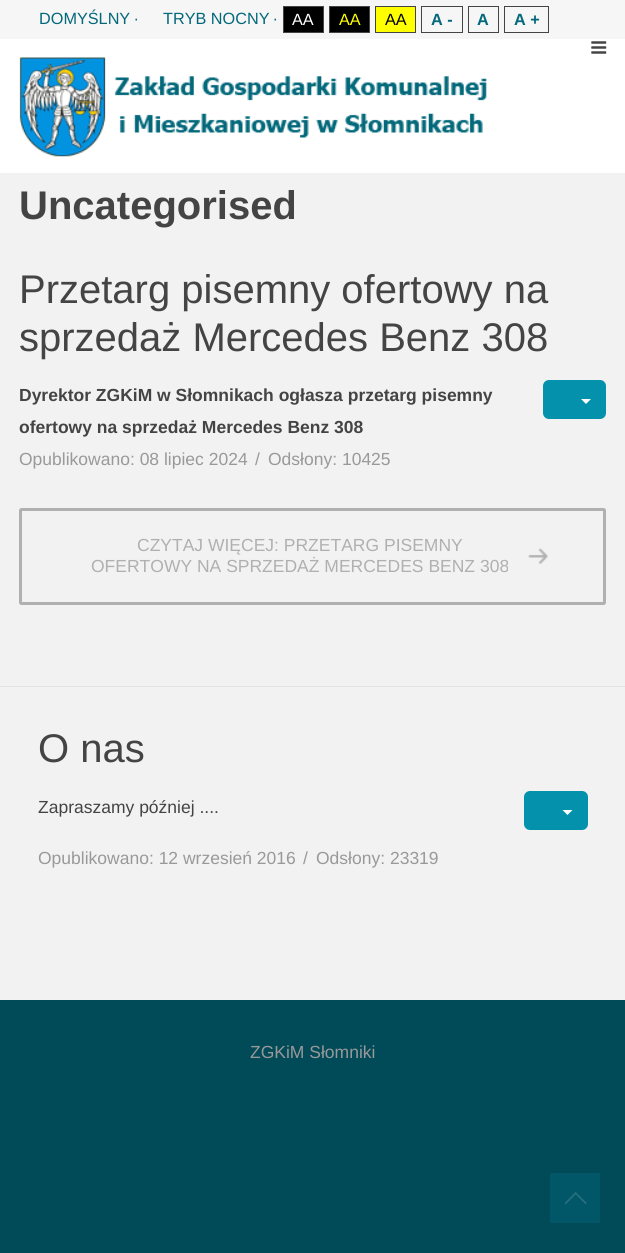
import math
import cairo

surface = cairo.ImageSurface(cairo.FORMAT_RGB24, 625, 1253)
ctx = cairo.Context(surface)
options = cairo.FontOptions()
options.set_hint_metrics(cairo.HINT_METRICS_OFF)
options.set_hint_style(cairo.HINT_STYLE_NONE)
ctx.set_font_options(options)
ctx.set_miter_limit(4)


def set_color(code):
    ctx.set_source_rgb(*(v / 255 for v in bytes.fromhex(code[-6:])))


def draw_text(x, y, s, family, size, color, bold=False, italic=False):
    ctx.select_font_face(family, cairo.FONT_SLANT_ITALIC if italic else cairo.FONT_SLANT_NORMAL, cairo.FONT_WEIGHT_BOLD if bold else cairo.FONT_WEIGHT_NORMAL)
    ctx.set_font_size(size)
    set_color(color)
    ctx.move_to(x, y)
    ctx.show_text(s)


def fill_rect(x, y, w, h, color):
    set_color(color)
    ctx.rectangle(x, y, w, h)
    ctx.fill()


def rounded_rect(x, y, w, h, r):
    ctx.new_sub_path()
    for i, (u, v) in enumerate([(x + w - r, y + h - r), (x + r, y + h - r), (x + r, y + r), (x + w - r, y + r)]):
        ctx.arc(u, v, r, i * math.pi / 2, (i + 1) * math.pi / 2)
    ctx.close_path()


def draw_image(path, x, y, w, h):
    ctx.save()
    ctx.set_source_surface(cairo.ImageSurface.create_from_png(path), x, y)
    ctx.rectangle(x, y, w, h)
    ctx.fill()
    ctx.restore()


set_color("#014a58")
ctx.paint()
fill_rect(0, 173, 625, 827, "#f2f2f2")
fill_rect(0, 0, 625, 39, "#f6f6f6")
draw_text(39, 24, "DOMYŚLNY", "Liberation Sans", 16.25, "#02687a")
draw_text(134, 24, "∙", "Liberation Sans", 16.25, "#02687a")
draw_text(163, 24, "TRYB NOCNY", "Liberation Sans", 16.25, "#02687a")
draw_text(273, 24, "∙", "Liberation Sans", 16.25, "#02687a")
set_color("#000000")
ctx.rectangle(283.5, 6.5, 40, 26)
ctx.fill_preserve()
set_color("#444444")
ctx.set_line_width(1)
ctx.stroke()
draw_text(292, 25, "AA", "Liberation Sans", 16.25, "#ffffff")
set_color("#000000")
ctx.rectangle(329.5, 6.5, 40, 26)
ctx.fill_preserve()
set_color("#444444")
ctx.stroke()
draw_text(339, 25, "AA", "Liberation Sans", 16.25, "#ffff00")
ctx.rectangle(375.5, 6.5, 40, 26)
ctx.fill_preserve()
set_color("#444444")
ctx.stroke()
draw_text(385, 25, "AA", "Liberation Sans", 16.25, "#000000")
ctx.rectangle(421.5, 6.5, 41, 26)
set_color("#444444")
ctx.stroke()
draw_text(431, 25, "A -", "Liberation Sans", 16.25, "#02687a", bold=True)
ctx.rectangle(468.5, 6.5, 30, 26)
set_color("#444444")
ctx.stroke()
draw_text(477, 25, "A", "Liberation Sans", 16.25, "#02687a", bold=True)
ctx.rectangle(504.5, 6.5, 44, 26)
set_color("#444444")
ctx.stroke()
draw_text(514, 25, "A +", "Liberation Sans", 16.25, "#02687a", bold=True)
fill_rect(0, 39, 625, 134, "#ffffff")
draw_image("assets/img1.png", 591, 41, 16, 13)
draw_image("assets/img2.png", 19, 57, 468, 100)
draw_text(19, 219, "Uncategorised", "Liberation Sans", 40, "#444444", bold=True)
fill_rect(0, 686, 625, 1, "#e3e3e3")
draw_text(19, 303, "Przetarg pisemny ofertowy na", "Liberation Sans", 40, "#444444")
draw_text(19, 351, "sprzedaż Mercedes Benz 308", "Liberation Sans", 40, "#444444")
draw_text(19, 401, "Dyrektor ZGKiM w Słomnikach ogłasza przetarg pisemny", "Liberation Sans", 17.5, "#444444", bold=True)
draw_text(19, 433, "ofertowy na sprzedaż Mercedes Benz 308", "Liberation Sans", 17.5, "#444444", bold=True)
set_color("#0391ac")
rounded_rect(544.5, 381.5, 60, 36, 4.5)
ctx.fill_preserve()
ctx.set_line_width(3)
ctx.stroke()
set_color("#ffffff")
ctx.new_path()
ctx.move_to(581, 399)
ctx.line_to(591, 399)
ctx.line_to(586, 404)
ctx.close_path()
ctx.fill()
draw_text(19, 465, "Opublikowano: 08 lipiec 2024", "Liberation Sans", 17.5, "#999999")
draw_text(255, 465, "/", "Liberation Sans", 17.5, "#999999")
draw_text(268, 465, "Odsłony: 10425", "Liberation Sans", 17.5, "#999999")
rounded_rect(20.5, 509.5, 584, 94, 1)
set_color("#b0b0b0")
ctx.stroke()
draw_text(137, 551, "CZYTAJ WIĘCEJ: PRZETARG PISEMNY", "Liberation Sans", 17.5, "#b0b0b0")
draw_image("assets/img3.png", 528, 548, 20, 16)
draw_text(91, 572, "OFERTOWY NA SPRZEDAŻ MERCEDES BENZ 308", "Liberation Sans", 17.5, "#b0b0b0")
draw_text(38, 762, "O nas", "Liberation Sans", 40, "#444444")
draw_text(38, 813, "Zapraszamy później ....", "Liberation Sans", 17.5, "#444444")
set_color("#0391ac")
rounded_rect(525.5, 792.5, 61, 36, 4.5)
ctx.fill_preserve()
ctx.stroke()
set_color("#ffffff")
ctx.new_path()
ctx.move_to(562.5, 810)
ctx.line_to(572.5, 810)
ctx.line_to(567.5, 815)
ctx.close_path()
ctx.fill()
draw_text(38, 864, "Opublikowano: 12 wrzesień 2016", "Liberation Sans", 17.5, "#999999")
draw_text(303, 864, "/", "Liberation Sans", 17.5, "#999999")
draw_text(316, 864, "Odsłony: 23319", "Liberation Sans", 17.5, "#999999")
draw_text(250, 1058, "ZGKiM Słomniki", "Liberation Sans", 17.5, "#999999")
fill_rect(550, 1173, 50, 50, "#015767")
draw_image("assets/img4.png", 565, 1192, 22, 13)
surface.write_to_png("output.png")
